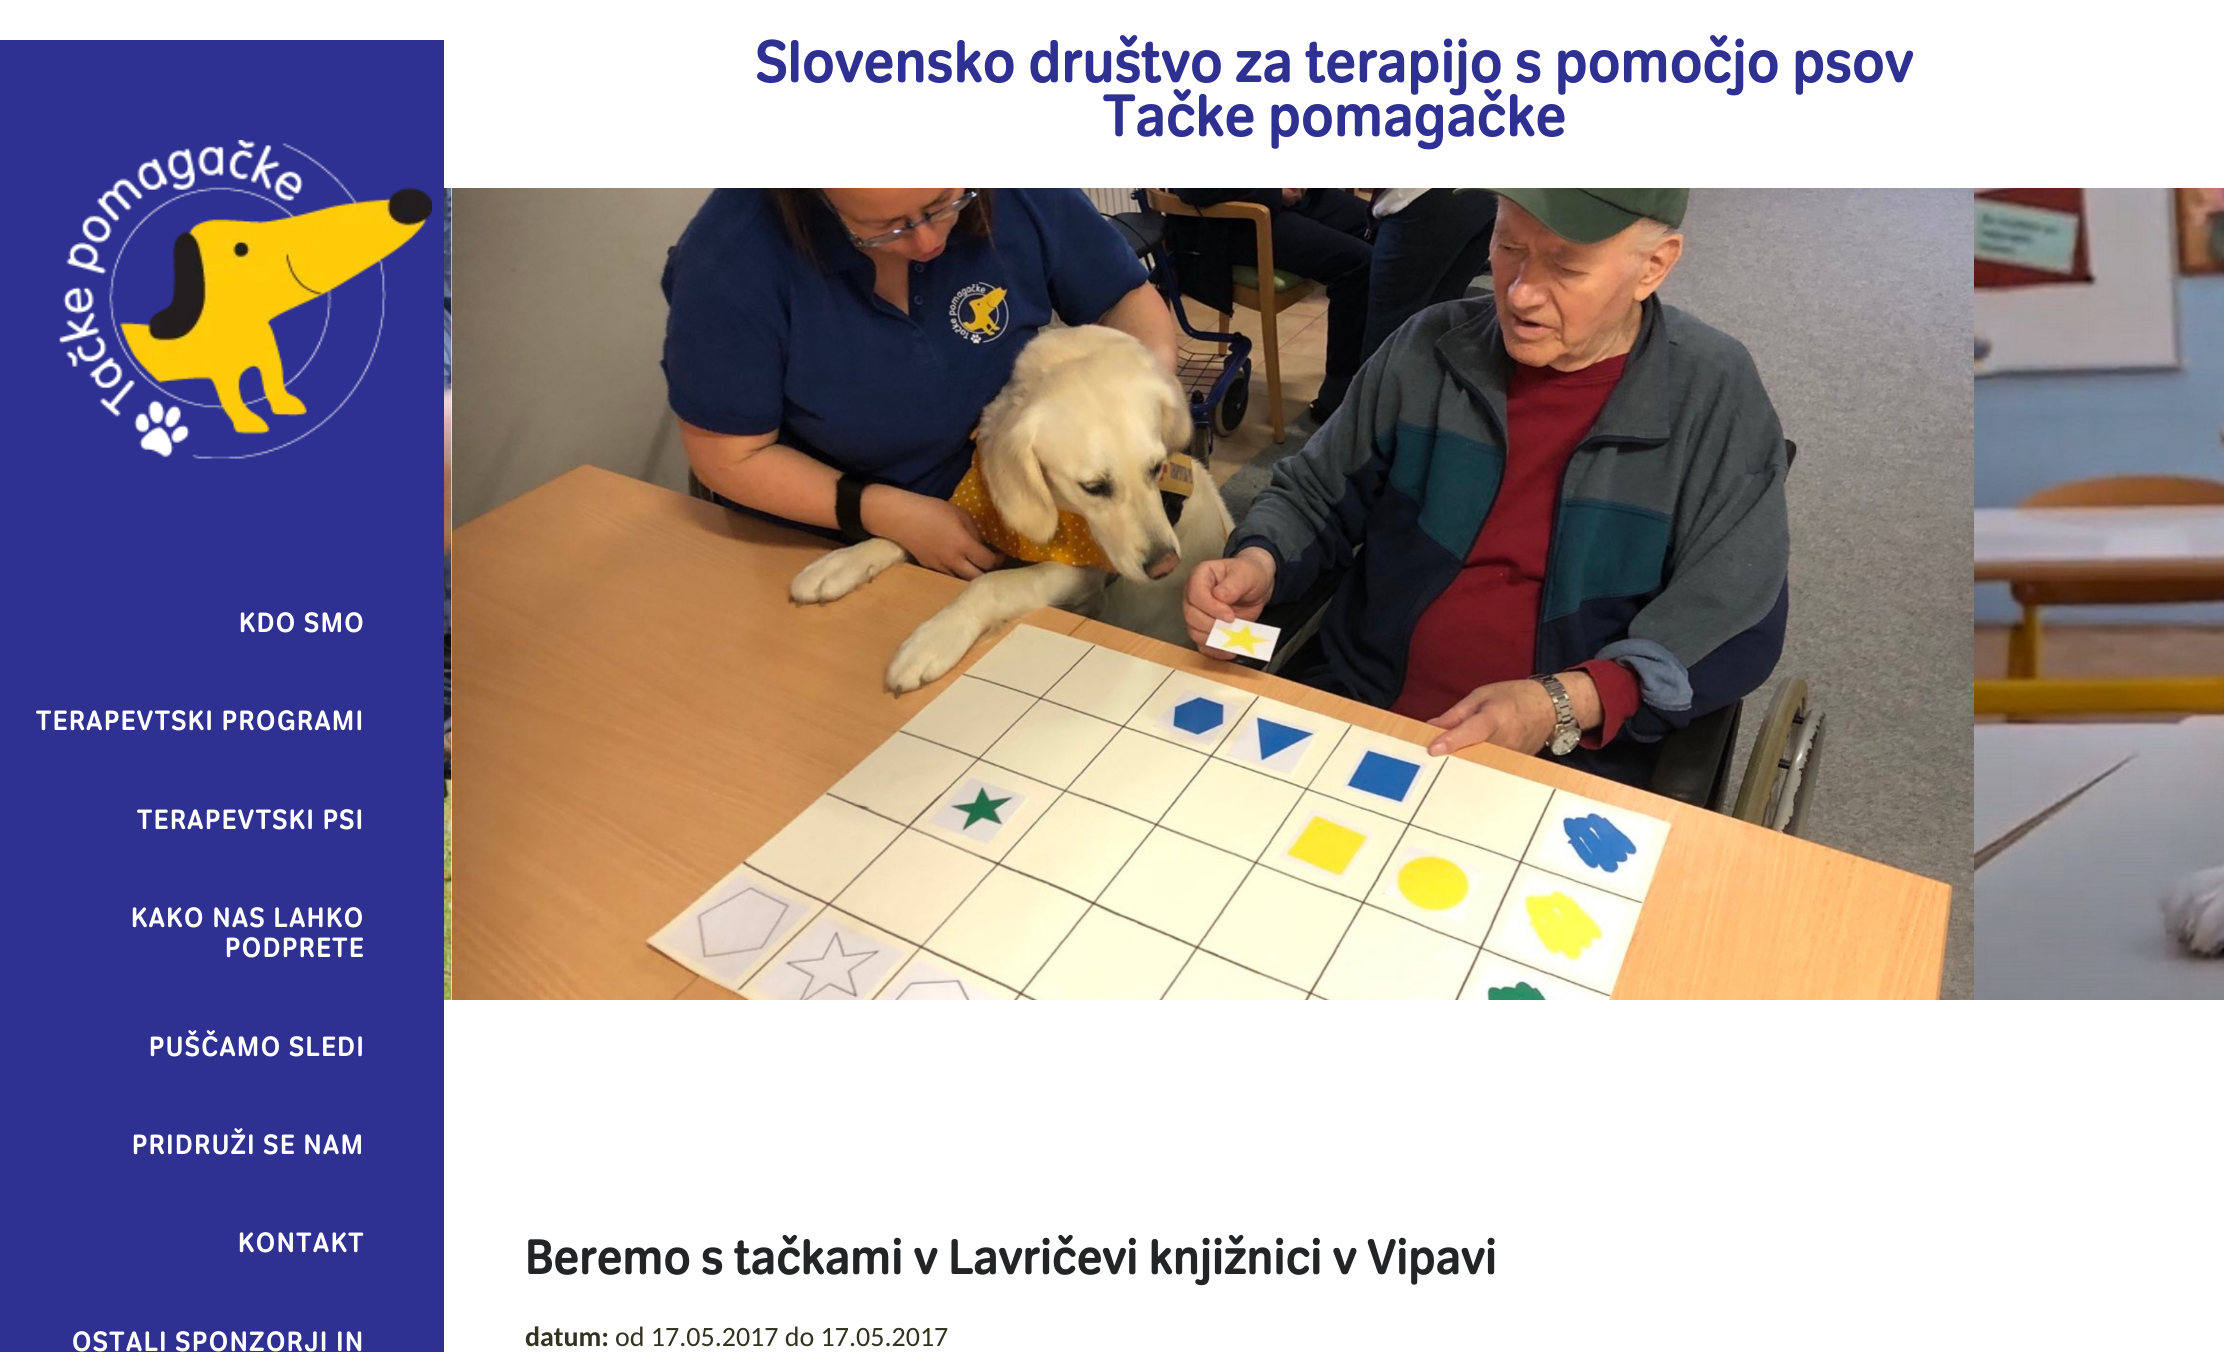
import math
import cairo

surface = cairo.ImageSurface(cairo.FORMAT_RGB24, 2224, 1352)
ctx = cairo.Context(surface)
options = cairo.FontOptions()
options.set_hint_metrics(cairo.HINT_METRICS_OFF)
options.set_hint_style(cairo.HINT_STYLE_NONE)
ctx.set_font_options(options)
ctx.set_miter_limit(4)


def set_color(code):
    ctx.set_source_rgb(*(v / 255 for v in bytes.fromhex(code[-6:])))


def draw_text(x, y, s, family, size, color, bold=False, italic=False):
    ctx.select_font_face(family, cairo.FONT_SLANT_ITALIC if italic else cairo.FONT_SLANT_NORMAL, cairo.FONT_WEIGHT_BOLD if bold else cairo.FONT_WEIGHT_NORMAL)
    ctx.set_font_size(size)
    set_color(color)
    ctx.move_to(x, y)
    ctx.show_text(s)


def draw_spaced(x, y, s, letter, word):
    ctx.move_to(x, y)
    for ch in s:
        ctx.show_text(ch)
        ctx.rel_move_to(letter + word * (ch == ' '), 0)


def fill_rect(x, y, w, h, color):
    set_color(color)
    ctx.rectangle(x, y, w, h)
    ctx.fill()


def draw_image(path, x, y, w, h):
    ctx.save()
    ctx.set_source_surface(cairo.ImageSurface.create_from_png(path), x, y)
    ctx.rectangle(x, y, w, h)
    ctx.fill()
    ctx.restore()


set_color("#ffffff")
ctx.paint()
fill_rect(0, 40, 444, 1312, "#2e3092")
draw_image("assets/img1.png", 59, 140, 373, 319)
ctx.select_font_face("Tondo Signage")
ctx.set_font_size(28)
set_color("#ffffff")
draw_spaced(239, 632, "KDO SMO", 1.6, 0)
draw_spaced(36, 730, "TERAPEVTSKI PROGRAMI", 1.6, 0)
draw_spaced(137, 829, "TERAPEVTSKI PSI", 1.6, 0)
draw_spaced(131, 927, "KAKO NAS LAHKO", 1.6, 0)
draw_spaced(225, 957, "PODPRETE", 1.6, 0)
draw_spaced(149, 1056, "PUŠČAMO SLEDI", 1.6, 0)
draw_spaced(132, 1154, "PRIDRUŽI SE NAM", 1.6, 0)
draw_spaced(238, 1252, "KONTAKT", 1.6, 0)
draw_spaced(72, 1351, "OSTALI SPONZORJI IN", 1.6, 0)
draw_text(756, 82, "Slovensko društvo za terapijo s pomočjo psov", "Tondo Signage", 60, "#2e3092")
draw_text(1103, 136, "Tačke pomagačke", "Tondo Signage", 60, "#2e3092")
draw_image("assets/img2.png", 444, 188, 8, 812)
draw_image("assets/img3.png", 452, 188, 1522, 812)
draw_image("assets/img4.png", 1974, 188, 250, 812)
draw_text(525, 1274, "Beremo s tačkami v Lavričevi knjižnici v Vipavi", "Tondo Signage", 50, "#232425")
draw_text(525, 1346, "datum:", "Carlito", 28, "#333322", bold=True)
draw_text(615, 1346, "od 17.05.2017 do 17.05.2017", "Carlito", 28, "#333322")
surface.write_to_png("output.png")
